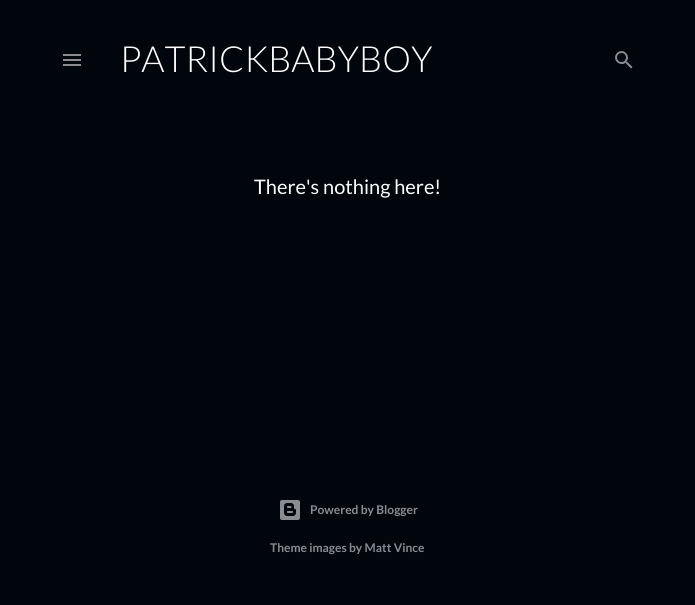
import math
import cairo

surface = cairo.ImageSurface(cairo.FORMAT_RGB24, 695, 605)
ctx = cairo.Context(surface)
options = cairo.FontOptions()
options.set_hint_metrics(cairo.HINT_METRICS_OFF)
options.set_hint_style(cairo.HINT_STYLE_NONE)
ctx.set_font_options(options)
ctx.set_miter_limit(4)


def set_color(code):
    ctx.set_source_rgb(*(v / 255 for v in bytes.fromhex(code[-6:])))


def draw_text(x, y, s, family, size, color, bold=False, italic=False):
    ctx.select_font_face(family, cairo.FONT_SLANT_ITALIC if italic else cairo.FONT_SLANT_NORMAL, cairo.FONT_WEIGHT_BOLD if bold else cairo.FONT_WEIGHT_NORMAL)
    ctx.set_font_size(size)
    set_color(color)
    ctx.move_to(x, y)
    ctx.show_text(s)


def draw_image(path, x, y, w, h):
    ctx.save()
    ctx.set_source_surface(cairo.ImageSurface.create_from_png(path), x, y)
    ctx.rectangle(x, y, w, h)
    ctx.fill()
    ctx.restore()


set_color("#01050c")
ctx.paint()
draw_image("assets/img1.png", 63, 54, 18, 12)
draw_text(120, 72, "PATRICKBABYBOY", "Lato Light", 36, "#ffffff")
draw_image("assets/img2.png", 615, 51, 18, 18)
draw_text(254, 194, "There's nothing here!", "Lato", 20, "#ffffff")
draw_image("assets/img3.png", 280, 500, 20, 20)
draw_text(310, 514, "Powered by Blogger", "Lato", 12, "#8a8c8f", bold=True)
draw_text(270, 552, "Theme images by Matt Vince", "Lato", 12, "#8a8c8f", bold=True)
surface.write_to_png("output.png")
